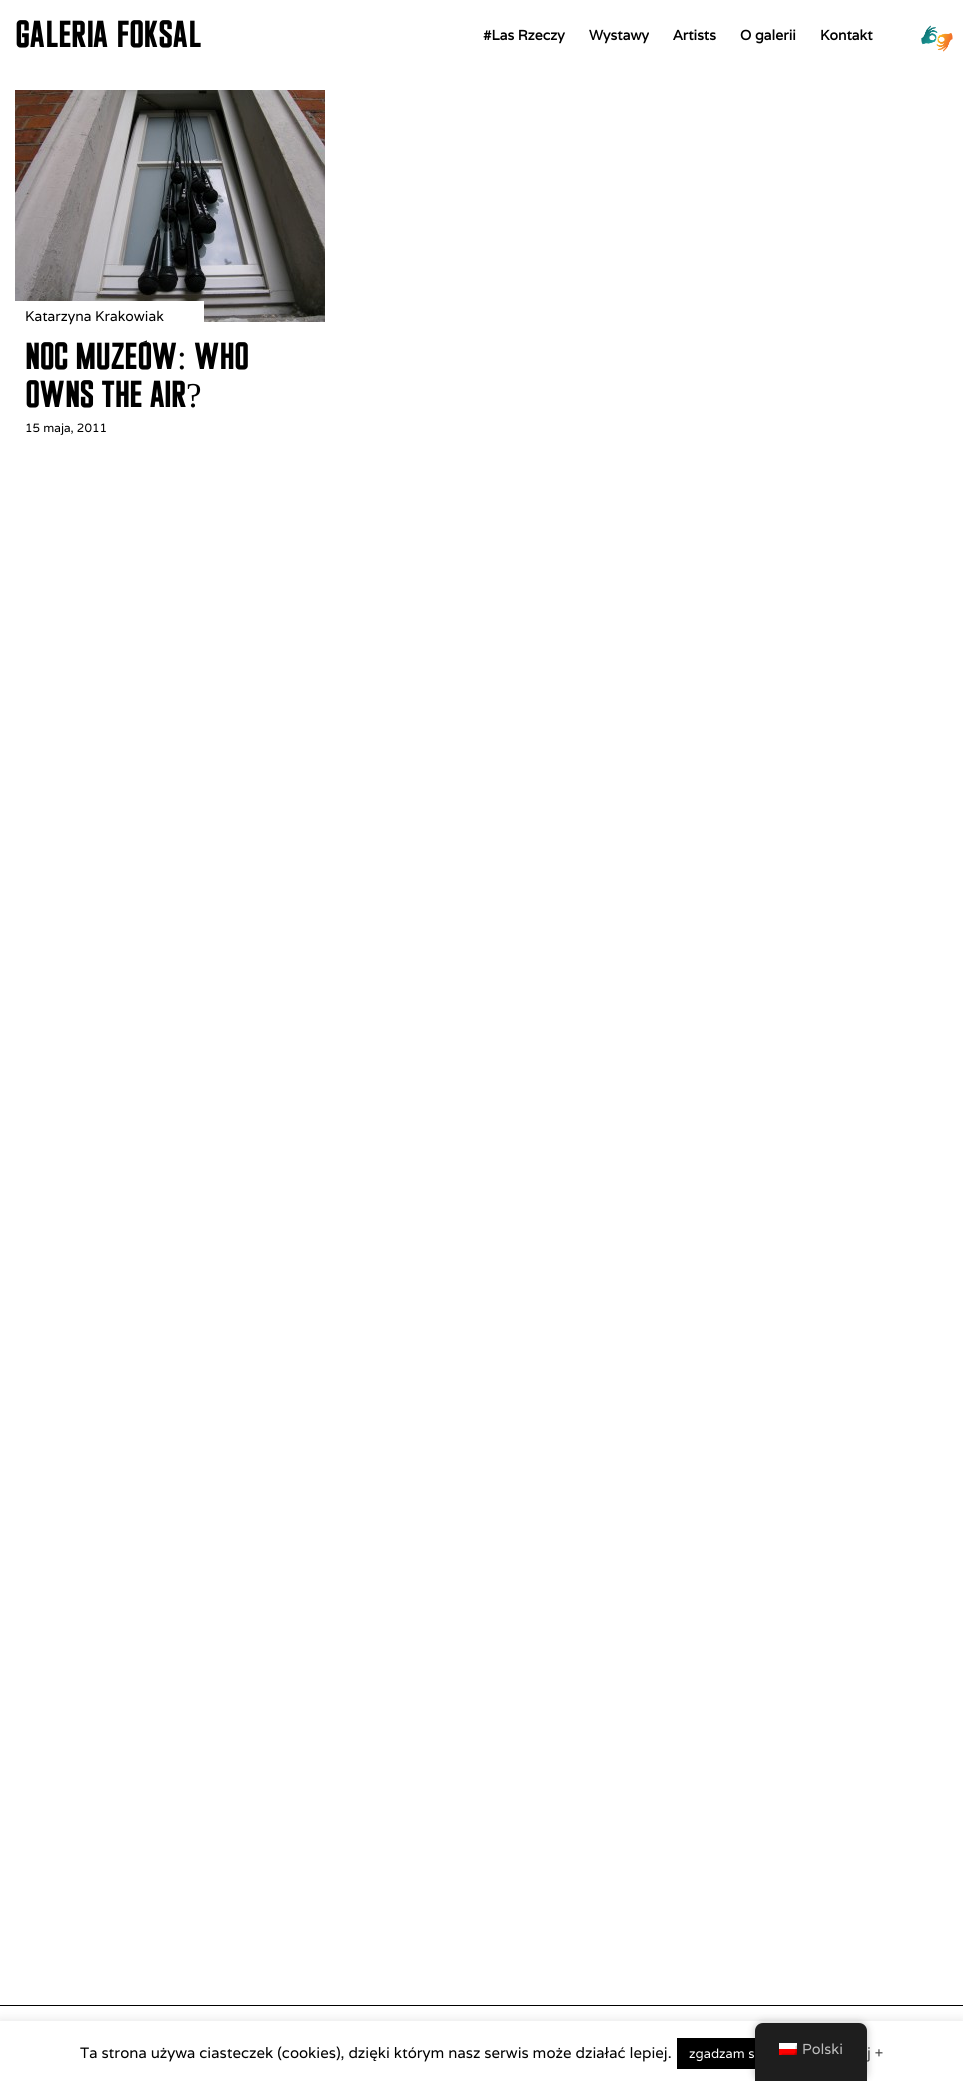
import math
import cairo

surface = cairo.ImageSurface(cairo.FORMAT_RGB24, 963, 2081)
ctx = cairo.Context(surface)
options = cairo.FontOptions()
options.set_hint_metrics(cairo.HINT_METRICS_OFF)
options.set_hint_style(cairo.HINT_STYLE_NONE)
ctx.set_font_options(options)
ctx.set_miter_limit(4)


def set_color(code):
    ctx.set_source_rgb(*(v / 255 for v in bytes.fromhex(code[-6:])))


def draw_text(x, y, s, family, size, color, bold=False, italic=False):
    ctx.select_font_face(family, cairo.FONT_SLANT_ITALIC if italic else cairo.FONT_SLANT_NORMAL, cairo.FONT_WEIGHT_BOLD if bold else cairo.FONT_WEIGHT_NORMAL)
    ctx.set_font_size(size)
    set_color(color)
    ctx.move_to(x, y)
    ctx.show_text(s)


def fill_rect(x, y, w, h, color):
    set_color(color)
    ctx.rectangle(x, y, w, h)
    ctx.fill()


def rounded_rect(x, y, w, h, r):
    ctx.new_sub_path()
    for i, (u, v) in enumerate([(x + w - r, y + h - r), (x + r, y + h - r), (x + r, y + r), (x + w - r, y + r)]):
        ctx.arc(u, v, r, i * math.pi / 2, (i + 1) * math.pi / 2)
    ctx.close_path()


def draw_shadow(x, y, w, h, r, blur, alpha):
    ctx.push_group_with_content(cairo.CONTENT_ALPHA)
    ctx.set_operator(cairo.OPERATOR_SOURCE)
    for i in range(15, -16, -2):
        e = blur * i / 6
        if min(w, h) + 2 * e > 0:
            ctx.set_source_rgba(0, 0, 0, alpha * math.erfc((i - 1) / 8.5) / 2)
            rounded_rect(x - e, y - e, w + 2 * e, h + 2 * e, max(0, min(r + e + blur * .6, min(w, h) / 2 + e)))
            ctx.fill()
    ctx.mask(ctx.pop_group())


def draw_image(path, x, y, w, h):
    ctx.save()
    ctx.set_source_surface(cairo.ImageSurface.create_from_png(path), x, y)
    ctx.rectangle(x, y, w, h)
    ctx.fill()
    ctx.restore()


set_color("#ffffff")
ctx.paint()
draw_text(15, 47, "GALERIA FOKSAL", "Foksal", 35, "#000000")
draw_text(483, 40, "#Las Rzeczy", "Varela", 14, "#000000", bold=True)
draw_text(589, 40, "Wystawy", "Varela", 14, "#000000", bold=True)
draw_text(673, 40, "Artists", "Varela", 14, "#000000", bold=True)
draw_text(740, 40, "O galerii", "Varela", 14, "#000000", bold=True)
draw_text(820, 40, "Kontakt", "Varela", 14, "#000000", bold=True)
draw_image("assets/img1.png", 15, 90, 310, 232)
fill_rect(15, 301, 189, 21, "#ffffff")
draw_text(25, 321, "Katarzyna Krakowiak", "Varela", 14, "#000000")
draw_text(25, 369, "Noc muzeów", "Foksal", 35, "#000000")
draw_text(177, 369, ":", "Liberation Serif", 35, "#000000")
draw_text(194, 369, "Who", "Foksal", 35, "#000000")
draw_text(25, 407, "owns the air", "Foksal", 35, "#000000")
draw_text(186, 407, "?", "Liberation Serif", 35, "#000000")
draw_text(25, 432, "15 maja, 2011", "Varela", 12, "#000000")
fill_rect(0, 2005, 963, 1, "#000000")
set_color("#acabab")
draw_shadow(0, 2020, 963, 60, 0, 5, 0.3)
fill_rect(0, 2021, 963, 60, "#ffffff")
fill_rect(677, 2038, 78, 31, "#000000")
set_color("#000000")
draw_shadow(755, 2023, 112, 58, 8, 4, 0.25)
draw_text(867, 2058, "j +", "Varela", 15, "#444444")
set_color("#1e1e1e")
ctx.new_path()
ctx.move_to(763, 2023)
ctx.line_to(859, 2023)
ctx.curve_to(863.5, 2023, 867, 2026.5, 867, 2031)
ctx.line_to(867, 2081)
ctx.line_to(755, 2081)
ctx.line_to(755, 2031)
ctx.curve_to(755, 2026.5, 758.5, 2023, 763, 2023)
ctx.close_path()
ctx.fill()
draw_image("assets/img2.png", 779, 2043, 18, 12)
draw_text(802, 2054, "Polski", "Varela", 14.5, "#bdbdbd")
draw_text(80, 2058, "Ta strona używa ciasteczek (cookies), dzięki którym nasz serwis może działać lepiej.", "Varela", 15, "#000000")
draw_text(689, 2058, "zgadzam s", "Varela", 13, "#ffffff")
draw_image("assets/img3.png", 921, 25, 32, 27)
surface.write_to_png("output.png")
